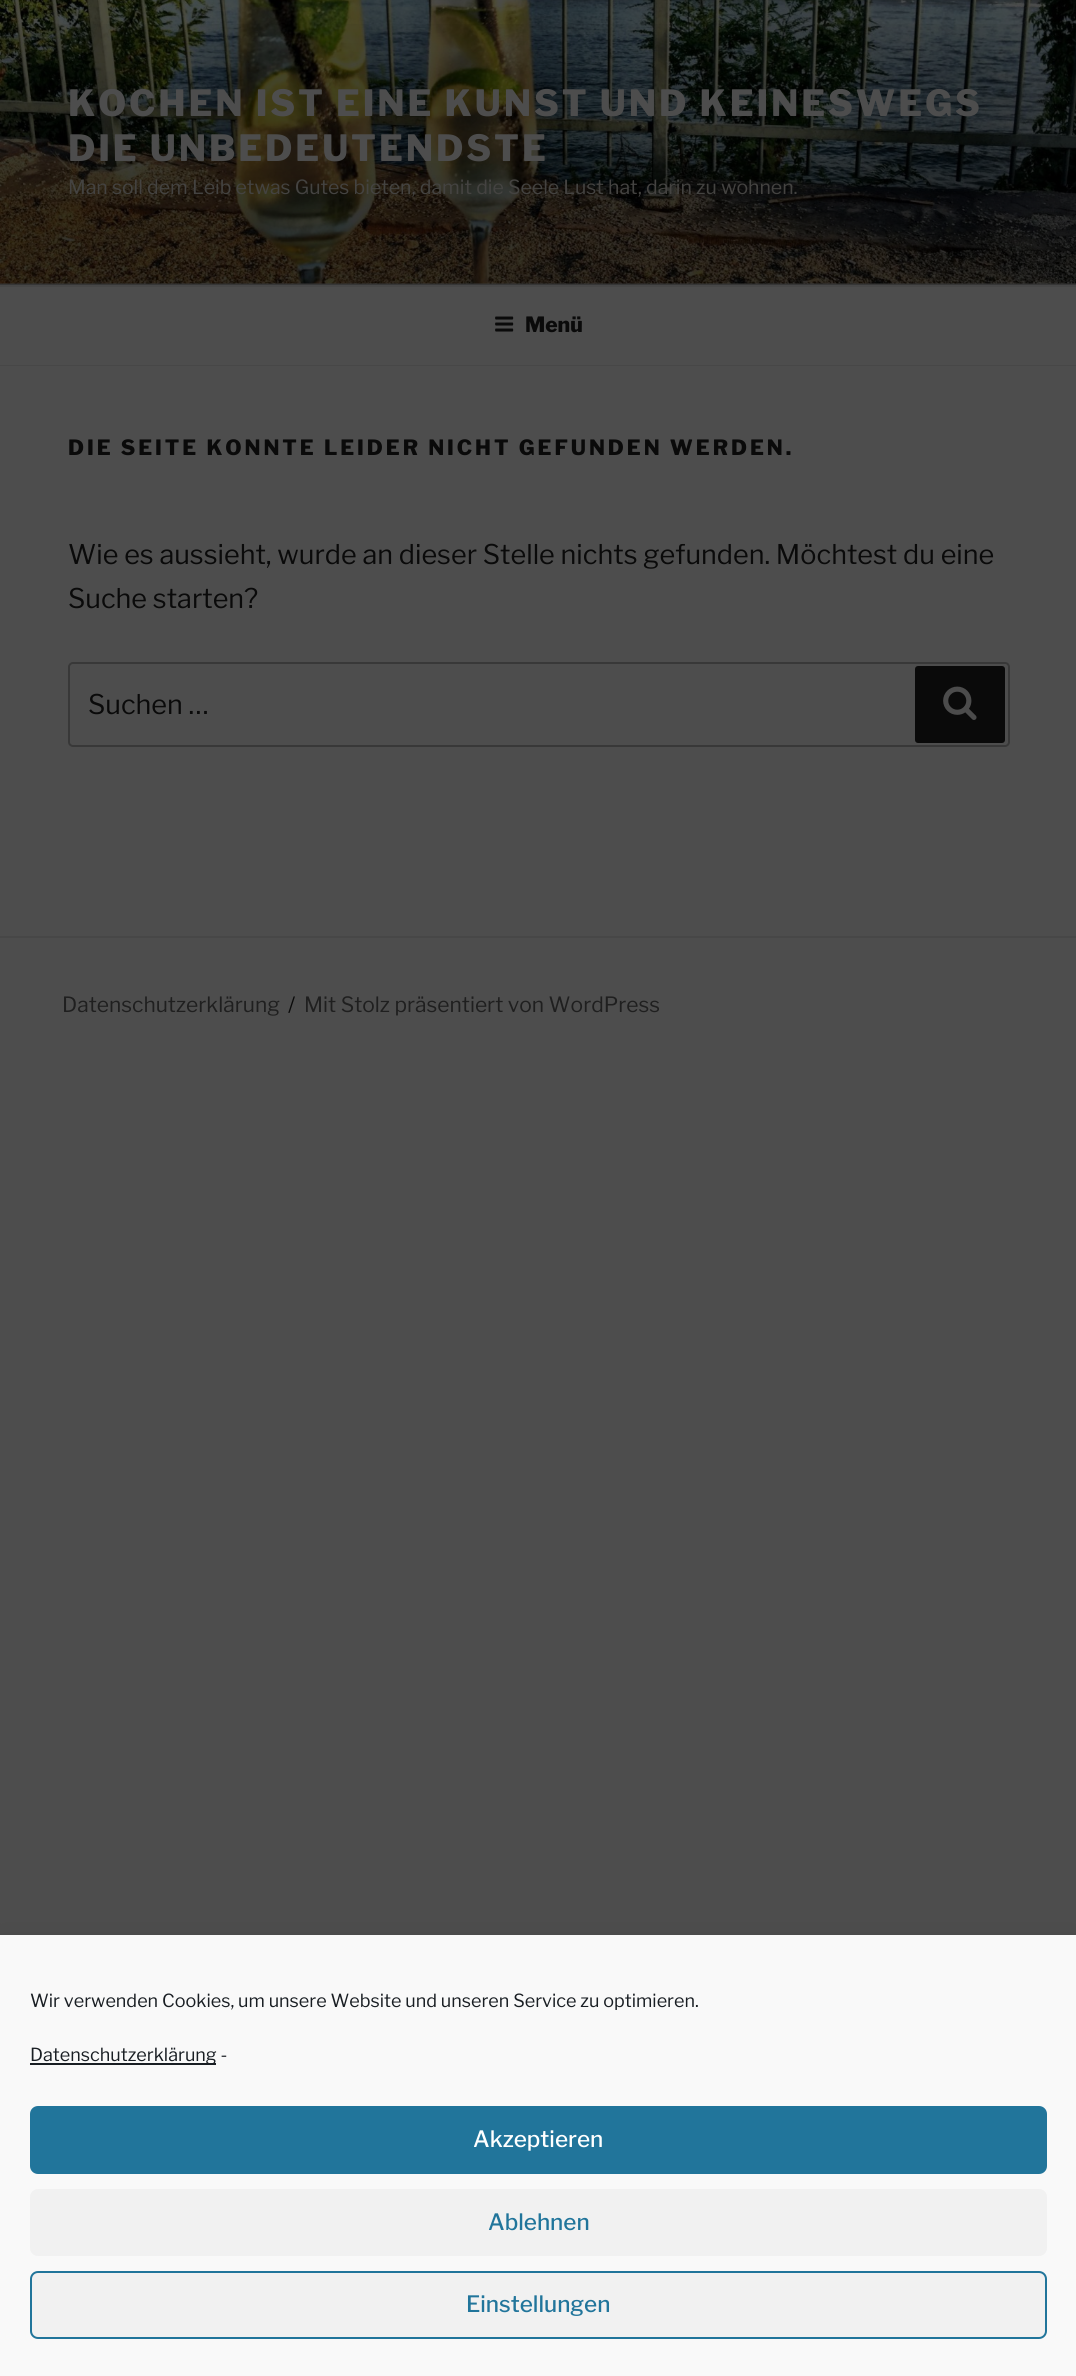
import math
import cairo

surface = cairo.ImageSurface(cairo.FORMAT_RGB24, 1076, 2376)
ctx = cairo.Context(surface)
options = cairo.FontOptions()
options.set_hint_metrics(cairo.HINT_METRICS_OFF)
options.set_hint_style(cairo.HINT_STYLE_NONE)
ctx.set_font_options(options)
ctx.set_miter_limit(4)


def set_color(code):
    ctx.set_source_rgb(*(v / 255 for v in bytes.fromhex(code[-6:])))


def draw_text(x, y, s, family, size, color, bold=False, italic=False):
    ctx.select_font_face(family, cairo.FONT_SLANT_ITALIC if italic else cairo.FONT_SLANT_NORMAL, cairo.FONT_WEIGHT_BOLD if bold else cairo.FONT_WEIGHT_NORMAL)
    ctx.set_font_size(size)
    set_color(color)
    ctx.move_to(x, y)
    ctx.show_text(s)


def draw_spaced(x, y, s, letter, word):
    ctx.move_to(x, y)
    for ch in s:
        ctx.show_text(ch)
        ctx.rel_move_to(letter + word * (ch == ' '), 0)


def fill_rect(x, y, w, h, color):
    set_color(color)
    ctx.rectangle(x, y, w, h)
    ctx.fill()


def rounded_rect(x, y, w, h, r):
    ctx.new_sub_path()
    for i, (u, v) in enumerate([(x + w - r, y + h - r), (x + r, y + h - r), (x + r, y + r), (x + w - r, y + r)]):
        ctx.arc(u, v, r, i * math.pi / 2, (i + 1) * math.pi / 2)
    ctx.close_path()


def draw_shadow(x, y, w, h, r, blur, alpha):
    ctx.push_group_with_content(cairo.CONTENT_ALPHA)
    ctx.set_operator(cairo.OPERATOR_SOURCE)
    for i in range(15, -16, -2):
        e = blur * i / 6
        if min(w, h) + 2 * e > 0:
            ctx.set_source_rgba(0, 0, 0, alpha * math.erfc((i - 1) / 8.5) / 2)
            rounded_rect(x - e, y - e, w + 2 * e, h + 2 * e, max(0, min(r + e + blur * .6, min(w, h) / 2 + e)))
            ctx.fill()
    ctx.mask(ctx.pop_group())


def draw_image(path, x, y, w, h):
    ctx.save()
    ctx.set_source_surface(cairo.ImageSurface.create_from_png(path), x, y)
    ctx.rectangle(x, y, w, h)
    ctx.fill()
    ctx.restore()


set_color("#4d4d4d")
ctx.paint()
draw_image("assets/img1.png", 0, 0, 1076, 284)
gradient = cairo.LinearGradient(539, 0, 539, 285)
gradient.add_color_stop_rgba(0, 0, 0, 0, 0)
gradient.add_color_stop_rgba(0.75, 0, 0, 0, 0.3)
gradient.add_color_stop_rgba(1, 0, 0, 0, 0.3)
ctx.set_source(gradient)
ctx.rectangle(0, 24, 1076, 261)
ctx.fill()
ctx.select_font_face("Libre Franklin ExtraBold")
ctx.set_font_size(36)
set_color("#4d4d4d")
draw_spaced(68, 116, "KOCHEN IST EINE KUNST UND KEINESWEGS", 2.9, 0)
draw_spaced(68, 161, "DIE UNBEDEUTENDSTE", 2.9, 0)
draw_text(68, 194, "Man soll dem Leib etwas Gutes bieten, damit die Seele Lust hat, darin zu wohnen.", "Libre Franklin", 19.5, "#444341")
fill_rect(0, 285, 1076, 2, "#474747")
fill_rect(0, 365, 1076, 1, "#474747")
draw_image("assets/img2.png", 495, 316, 19, 16)
draw_text(525, 332, "Menü", "Libre Franklin ExtraBold", 21, "#0a0a0a")
draw_spaced(68, 455, "DIE SEITE KONNTE LEIDER NICHT GEFUNDEN WERDEN.", 2.95, 0)
draw_text(68, 564, "Wie es aussieht, wurde an dieser Stelle nichts gefunden. Möchtest du eine", "Libre Franklin", 27, "#0a0a0a")
draw_text(68, 608, "Suche starten?", "Libre Franklin", 27, "#0a0a0a")
rounded_rect(69, 663, 940, 83, 4)
set_color("#383838")
ctx.stroke()
draw_text(88, 714, "Suchen …", "Libre Franklin", 27, "#0a0a0a")
rounded_rect(915, 666, 90, 77, 3)
ctx.fill()
draw_image("assets/img3.png", 943, 686, 34, 34)
fill_rect(0, 936, 1076, 2, "#474747")
draw_text(62, 1012, "Datenschutzerklärung", "Libre Franklin", 21, "#1f1f1f")
draw_text(288, 1012, "/", "Libre Franklin", 21, "#0a0a0a")
draw_text(304, 1012, "Mit Stolz präsentiert von WordPress", "Libre Franklin", 21, "#1f1f1f")
set_color("#000000")
draw_shadow(0, 1950, 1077, 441, 0, 15, 0.19)
fill_rect(0, 1935, 1076, 441, "#f9f9f9")
draw_text(30, 2007, "Wir verwenden Cookies, um unsere Website und unseren Service zu optimieren.", "Libre Franklin", 18, "#191e23")
fill_rect(30, 2063, 186, 2, "#191e23")
draw_text(30, 2061, "Datenschutzerklärung -", "Libre Franklin", 18, "#191e23")
set_color("#21759b")
rounded_rect(31, 2107, 1015, 66, 7)
ctx.fill_preserve()
ctx.stroke()
draw_text(473, 2147, "Akzeptieren", "Libre Franklin Medium", 22.5, "#ffffff")
set_color("#f1f1f1")
rounded_rect(30, 2189, 1017, 67, 8)
ctx.fill()
draw_text(488, 2230, "Ablehnen", "Libre Franklin Medium", 22.5, "#21759b")
set_color("#f1f1f1")
rounded_rect(31, 2272, 1015, 66, 7)
ctx.fill_preserve()
set_color("#21759b")
ctx.stroke()
draw_text(466, 2312, "Einstellungen", "Libre Franklin Medium", 22.5, "#21759b")
surface.write_to_png("output.png")
